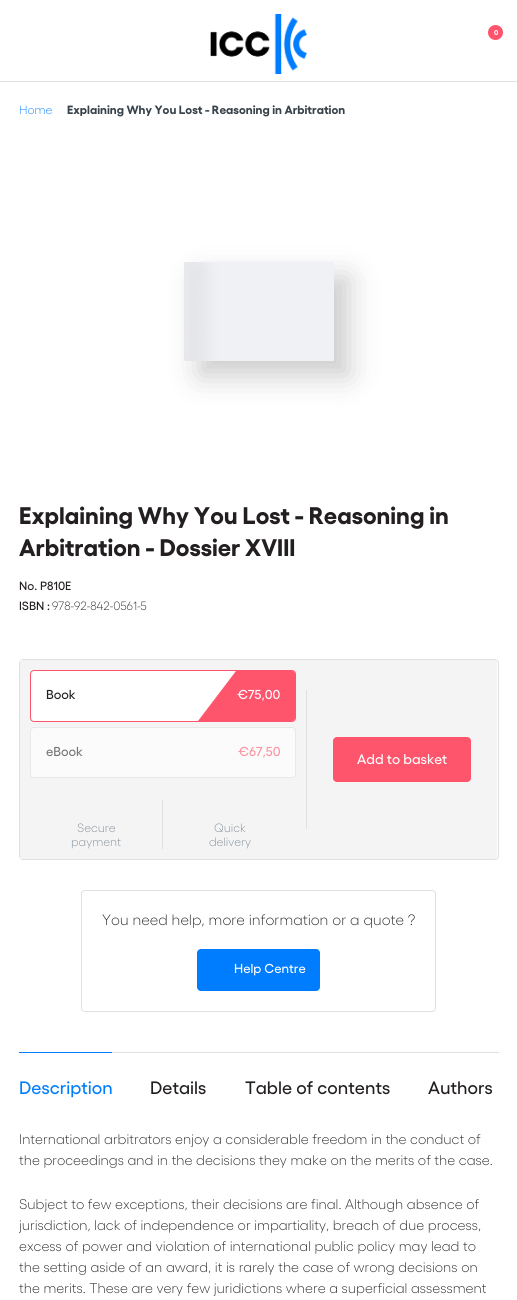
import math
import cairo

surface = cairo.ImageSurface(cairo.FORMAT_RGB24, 517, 1300)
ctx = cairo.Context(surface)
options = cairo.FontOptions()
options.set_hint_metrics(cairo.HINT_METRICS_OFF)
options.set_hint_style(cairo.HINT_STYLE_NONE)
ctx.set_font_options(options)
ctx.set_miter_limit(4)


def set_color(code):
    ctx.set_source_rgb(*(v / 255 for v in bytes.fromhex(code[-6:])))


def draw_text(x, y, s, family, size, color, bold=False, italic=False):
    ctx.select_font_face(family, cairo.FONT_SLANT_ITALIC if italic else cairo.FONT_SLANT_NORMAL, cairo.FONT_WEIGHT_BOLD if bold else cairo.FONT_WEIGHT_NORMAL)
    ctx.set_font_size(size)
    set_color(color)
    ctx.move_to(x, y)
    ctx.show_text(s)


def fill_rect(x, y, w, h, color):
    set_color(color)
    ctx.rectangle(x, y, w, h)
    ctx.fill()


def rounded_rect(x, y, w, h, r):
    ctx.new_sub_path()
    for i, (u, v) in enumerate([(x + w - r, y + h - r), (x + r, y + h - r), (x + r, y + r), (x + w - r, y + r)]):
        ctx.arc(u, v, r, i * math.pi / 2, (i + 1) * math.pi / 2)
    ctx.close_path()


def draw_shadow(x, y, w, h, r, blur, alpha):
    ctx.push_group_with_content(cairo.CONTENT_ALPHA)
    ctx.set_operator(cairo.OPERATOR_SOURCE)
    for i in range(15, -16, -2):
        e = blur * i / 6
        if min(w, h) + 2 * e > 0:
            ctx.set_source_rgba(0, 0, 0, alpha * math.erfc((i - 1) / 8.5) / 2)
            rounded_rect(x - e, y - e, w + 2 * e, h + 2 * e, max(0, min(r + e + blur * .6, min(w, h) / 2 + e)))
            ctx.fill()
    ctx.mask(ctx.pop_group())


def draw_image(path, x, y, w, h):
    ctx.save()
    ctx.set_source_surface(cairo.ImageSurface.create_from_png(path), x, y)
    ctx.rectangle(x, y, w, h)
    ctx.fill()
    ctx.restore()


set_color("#ffffff")
ctx.paint()
fill_rect(0, 81, 517, 1, "#e0e0e1")
draw_image("assets/img1.png", 210, 14, 97, 60)
set_color("#ff556c")
ctx.arc(495.5, 32.5, 8.5, 0, 2 * math.pi)
ctx.fill_preserve()
set_color("#ffffff")
ctx.stroke()
draw_text(494, 35, "0", "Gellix", 7, "#ffffff", bold=True)
draw_text(19, 114, "Home", "Gellix Light", 12, "#007dff")
draw_text(67, 114, "Explaining Why You Lost - Reasoning in Arbitration", "Gellix", 12, "#37424a", bold=True)
set_color("#000000")
draw_shadow(199, 277, 150, 99, 0, 15, 0.2)
draw_image("assets/img2.png", 184, 262, 150, 99)
draw_text(19, 524, "Explaining Why You Lost - Reasoning in", "Gellix", 24, "#231f20", bold=True)
draw_text(19, 556, "Arbitration - Dossier XVIII", "Gellix", 24, "#231f20", bold=True)
draw_text(19, 590, "No. P810E", "Gellix Medium", 12, "#231f20")
draw_text(19, 610, "ISBN :", "Gellix Medium", 12, "#231f20")
draw_text(52, 610, "978-92-842-0561-5", "Gellix Light", 12, "#231f20")
rounded_rect(19.5, 659.5, 479, 200, 3.5)
set_color("#e0e0e1")
ctx.set_line_width(1)
ctx.stroke()
fill_rect(20, 660, 477, 199, "#f4f4f4")
set_color("#ffffff")
rounded_rect(30.5, 670.5, 265, 51, 3.5)
ctx.fill_preserve()
set_color("#ff556c")
ctx.stroke()
draw_text(46, 699, "Book", "Gellix Medium", 13, "#231f20")
set_color("#ff556c")
ctx.new_path()
ctx.move_to(198, 721)
ctx.line_to(236, 671)
ctx.line_to(292, 671)
ctx.curve_to(294, 671, 295, 672, 295, 674)
ctx.line_to(295, 718)
ctx.curve_to(295, 720, 294, 721, 292, 721)
ctx.close_path()
ctx.fill()
draw_text(237, 699, "€75,00", "Gellix Medium", 13, "#ffffff")
set_color("#fbfbfb")
rounded_rect(30.5, 727.5, 265, 50, 3.5)
ctx.fill_preserve()
set_color("#e8e8e9")
ctx.stroke()
draw_text(46, 756, "eBook", "Gellix Medium", 13, "#777475")
draw_text(238, 756, "€67,50", "Gellix Medium", 13, "#fb95a2")
fill_rect(162, 800, 1, 49, "#e0e0e1")
draw_text(77, 832, "Secure", "Gellix Light", 12, "#7c8a95")
draw_text(71, 846, "payment", "Gellix Light", 12, "#7c8a95")
draw_text(214, 832, "Quick", "Gellix Light", 12, "#7c8a95")
draw_text(209, 846, "delivery", "Gellix Light", 12, "#7c8a95")
fill_rect(306, 690, 1, 139, "#e0e0e1")
set_color("#ff556c")
rounded_rect(333, 737, 138, 45, 4)
ctx.fill()
draw_text(357, 764, "Add to basket", "Gellix Medium", 14, "#ffffff")
rounded_rect(81.5, 890.5, 354, 121, 3.5)
set_color("#e0e0e1")
ctx.stroke()
draw_text(102, 925, "You need help, more information or a quote ?", "Gellix Light", 15, "#231f20")
set_color("#007dff")
rounded_rect(197, 949, 123, 42, 4)
ctx.fill()
draw_text(234, 973, "Help Centre", "Gellix Medium", 13, "#ffffff")
fill_rect(112, 1052, 387, 1, "#e0e0e1")
fill_rect(19, 1052, 93, 1, "#007dff")
draw_text(19, 1094, "Description", "Gellix Medium", 18, "#007dff")
draw_text(150, 1094, "Details", "Gellix Medium", 18, "#231f20")
draw_text(245, 1094, "Table of contents", "Gellix Medium", 18, "#231f20")
draw_text(428, 1094, "Authors", "Gellix Medium", 18, "#231f20")
draw_text(19, 1144, "International arbitrators enjoy a considerable freedom in the conduct of", "Gellix Light", 14, "#231f20")
draw_text(19, 1165, "the proceedings and in the decisions they make on the merits of the case.", "Gellix Light", 14, "#231f20")
draw_text(19, 1209, "Subject to few exceptions, their decisions are final. Although absence of", "Gellix Light", 14, "#231f20")
draw_text(19, 1230, "jurisdiction, lack of independence or impartiality, breach of due process,", "Gellix Light", 14, "#231f20")
draw_text(19, 1251, "excess of power and violation of international public policy may lead to", "Gellix Light", 14, "#231f20")
draw_text(19, 1272, "the setting aside of an award, it is rarely the case of wrong decisions on", "Gellix Light", 14, "#231f20")
draw_text(19, 1293, "the merits. These are very few juridictions where a superficial assessment", "Gellix Light", 14, "#231f20")
surface.write_to_png("output.png")
